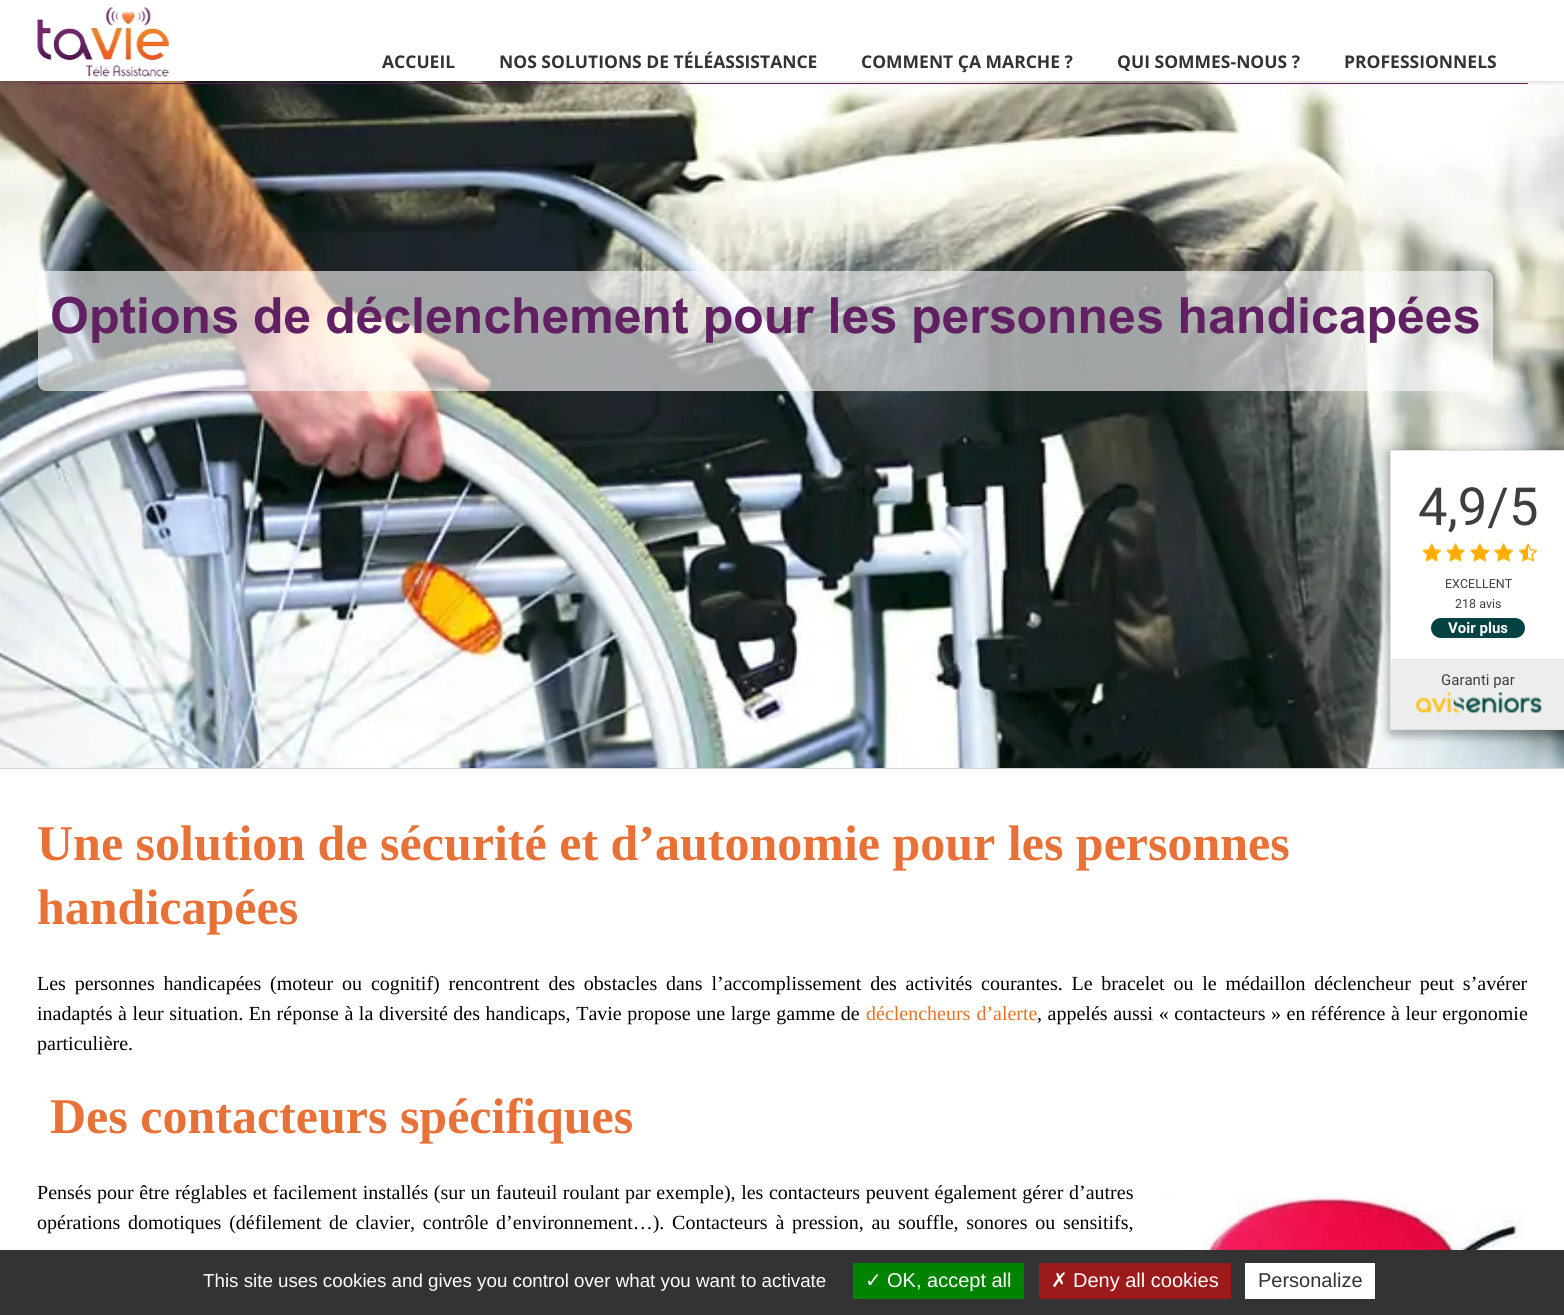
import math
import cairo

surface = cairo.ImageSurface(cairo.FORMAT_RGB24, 1564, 1315)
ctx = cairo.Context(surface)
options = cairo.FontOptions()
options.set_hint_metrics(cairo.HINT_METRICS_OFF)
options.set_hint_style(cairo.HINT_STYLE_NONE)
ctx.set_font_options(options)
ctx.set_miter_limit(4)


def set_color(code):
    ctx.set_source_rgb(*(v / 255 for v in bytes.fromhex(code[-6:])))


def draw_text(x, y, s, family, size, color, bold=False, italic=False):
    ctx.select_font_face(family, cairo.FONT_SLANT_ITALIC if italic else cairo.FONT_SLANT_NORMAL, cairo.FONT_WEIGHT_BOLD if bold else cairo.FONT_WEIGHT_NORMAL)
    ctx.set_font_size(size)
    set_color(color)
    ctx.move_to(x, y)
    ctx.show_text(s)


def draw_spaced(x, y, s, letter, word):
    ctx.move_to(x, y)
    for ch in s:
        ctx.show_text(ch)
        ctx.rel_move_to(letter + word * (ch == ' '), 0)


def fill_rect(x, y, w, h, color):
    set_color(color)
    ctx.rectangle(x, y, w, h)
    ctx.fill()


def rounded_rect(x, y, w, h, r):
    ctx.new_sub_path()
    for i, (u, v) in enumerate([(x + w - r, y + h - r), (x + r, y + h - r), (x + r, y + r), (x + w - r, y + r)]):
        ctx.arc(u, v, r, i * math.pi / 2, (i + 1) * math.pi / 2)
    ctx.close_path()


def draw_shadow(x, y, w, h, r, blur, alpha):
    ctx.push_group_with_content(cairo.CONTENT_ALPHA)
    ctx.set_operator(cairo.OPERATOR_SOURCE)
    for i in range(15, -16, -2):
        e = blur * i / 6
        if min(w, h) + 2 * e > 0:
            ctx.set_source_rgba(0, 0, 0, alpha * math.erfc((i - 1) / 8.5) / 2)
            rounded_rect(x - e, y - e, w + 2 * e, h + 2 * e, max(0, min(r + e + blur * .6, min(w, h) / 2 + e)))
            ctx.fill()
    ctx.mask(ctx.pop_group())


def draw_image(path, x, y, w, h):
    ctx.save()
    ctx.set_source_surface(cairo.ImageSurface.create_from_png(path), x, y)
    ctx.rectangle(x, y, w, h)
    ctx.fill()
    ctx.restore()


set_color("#ffffff")
ctx.paint()
draw_image("assets/img2.png", 0, 81, 1564, 687)
set_color("#000000")
draw_shadow(0, 1, 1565, 82, 0, 2, 0.12)
fill_rect(0, 0, 1564, 81, "#ffffff")
fill_rect(38, 83, 1490, 1, "#61205d")
draw_image("assets/img1.png", 37, 7, 132, 70)
draw_text(382, 68, "ACCUEIL", "Open Sans", 17.5, "#333333", bold=True)
draw_text(499, 68, "NOS SOLUTIONS DE TÉLÉASSISTANCE", "Open Sans", 17.5, "#333333", bold=True)
draw_text(861, 68, "COMMENT ÇA MARCHE ?", "Open Sans", 17.5, "#333333", bold=True)
draw_text(1117, 68, "QUI SOMMES-NOUS ?", "Open Sans", 17.5, "#333333", bold=True)
draw_text(1344, 68, "PROFESSIONNELS", "Open Sans", 17.5, "#333333", bold=True)
fill_rect(0, 768, 1564, 1, "#d2d3d4")
ctx.set_source_rgba(1, 1, 1, 0.6)
rounded_rect(38, 271, 1455, 120, 8)
ctx.fill()
draw_text(50, 333, "Options de déclenchement pour les personnes handicapées", "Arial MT", 50, "#612062", bold=True)
draw_text(37, 860, "Une solution de sécurité et d’autonomie pour les personnes", "Liberation Serif", 50, "#e87137", bold=True)
draw_text(37, 924, "handicapées", "Liberation Serif", 50, "#e87137", bold=True)
ctx.select_font_face("Liberation Serif")
ctx.set_font_size(20)
set_color("#000000")
draw_spaced(37, 990, "Les personnes handicapées (moteur ou cognitif) rencontrent des obstacles dans l’accomplissement des activités courantes. Le bracelet ou le médaillon déclencheur peut s’avérer", 0, 3.8)
draw_spaced(37, 1020, "inadaptés à leur situation. En réponse à la diversité des handicaps, Tavie propose une large gamme de", 0, 0.6)
set_color("#e87124")
draw_spaced(866, 1020, "déclencheurs d’alerte", 0, 1)
set_color("#000000")
draw_spaced(1037, 1020, ", appelés aussi « contacteurs » en référence à leur ergonomie", 0, 0.6)
draw_text(37, 1050, "particulière.", "Liberation Serif", 20, "#000000")
draw_text(50, 1133, "Des contacteurs spécifiques", "Liberation Serif", 50, "#e87137", bold=True)
ctx.select_font_face("Liberation Serif")
ctx.set_font_size(20)
set_color("#000000")
draw_spaced(37, 1199, "Pensés pour être réglables et facilement installés (sur un fauteuil roulant par exemple), les contacteurs peuvent également gérer d’autres", 0, 0.6)
draw_spaced(37, 1229, "opérations domotiques (défilement de clavier, contrôle d’environnement…). Contacteurs à pression, au souffle, sonores ou sensitifs,", 0, 2.75)
draw_image("assets/img3.png", 1163, 1196, 360, 54)
set_color("#000000")
draw_shadow(1388, 451, 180, 285, 5, 4.5, 0.3)
set_color("#ffffff")
ctx.new_path()
ctx.move_to(1392.5, 450)
ctx.line_to(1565, 450)
ctx.line_to(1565, 730)
ctx.line_to(1392.5, 730)
ctx.curve_to(1391, 730, 1390, 729, 1390, 727.5)
ctx.line_to(1390, 452.5)
ctx.curve_to(1390, 451, 1391, 450, 1392.5, 450)
ctx.close_path()
ctx.fill()
fill_rect(1391, 450, 173, 1, "#e3e3e3")
fill_rect(1391, 729, 173, 1, "#e3e3e3")
fill_rect(1390, 451, 1, 278, "#e3e3e3")
draw_text(1418, 525, "4,9/5", "Roboto", 52.5, "#3e3e3e")
draw_image("assets/img4.png", 1422, 542, 19, 20)
draw_image("assets/img5.png", 1446, 542, 19, 20)
draw_image("assets/img6.png", 1470, 542, 20, 20)
draw_image("assets/img7.png", 1493, 542, 21, 20)
draw_image("assets/img8.png", 1518, 543, 20, 19)
draw_text(1445, 588, "EXCELLENT", "Roboto", 12.5, "#3e3e3e")
draw_text(1455, 608, "218 avis", "Roboto", 12.5, "#3e3e3e")
set_color("#054243")
rounded_rect(1431, 618, 94, 20, 10)
ctx.fill()
draw_text(1448, 633, "Voir plus", "Roboto", 15, "#ffffff", bold=True)
fill_rect(1391, 659, 173, 70, "#ededed")
draw_text(1441, 685, "Garanti par", "Roboto", 15, "#3e3e3e")
draw_image("assets/img9.png", 1416, 692, 126, 21)
fill_rect(0, 1250, 1564, 65, "#333333")
draw_text(203, 1287, "This site uses cookies and gives you control over what you want to activate", "Liberation Sans", 18.75, "#ffffff")
fill_rect(853, 1263, 171, 36, "#008300")
draw_text(865, 1287, "✓", "DejaVu Sans", 20, "#ffffff")
draw_text(887, 1287, "OK, accept all", "Liberation Sans", 20, "#ffffff")
fill_rect(1039, 1263, 192, 36, "#9c1a1a")
draw_text(1051, 1287, "✗", "DejaVu Sans", 20, "#ffffff")
draw_text(1073, 1287, "Deny all cookies", "Liberation Sans", 20, "#ffffff")
fill_rect(1245, 1263, 130, 36, "#ffffff")
draw_text(1258, 1287, "Personalize", "Liberation Sans", 20, "#333333")
surface.write_to_png("output.png")
